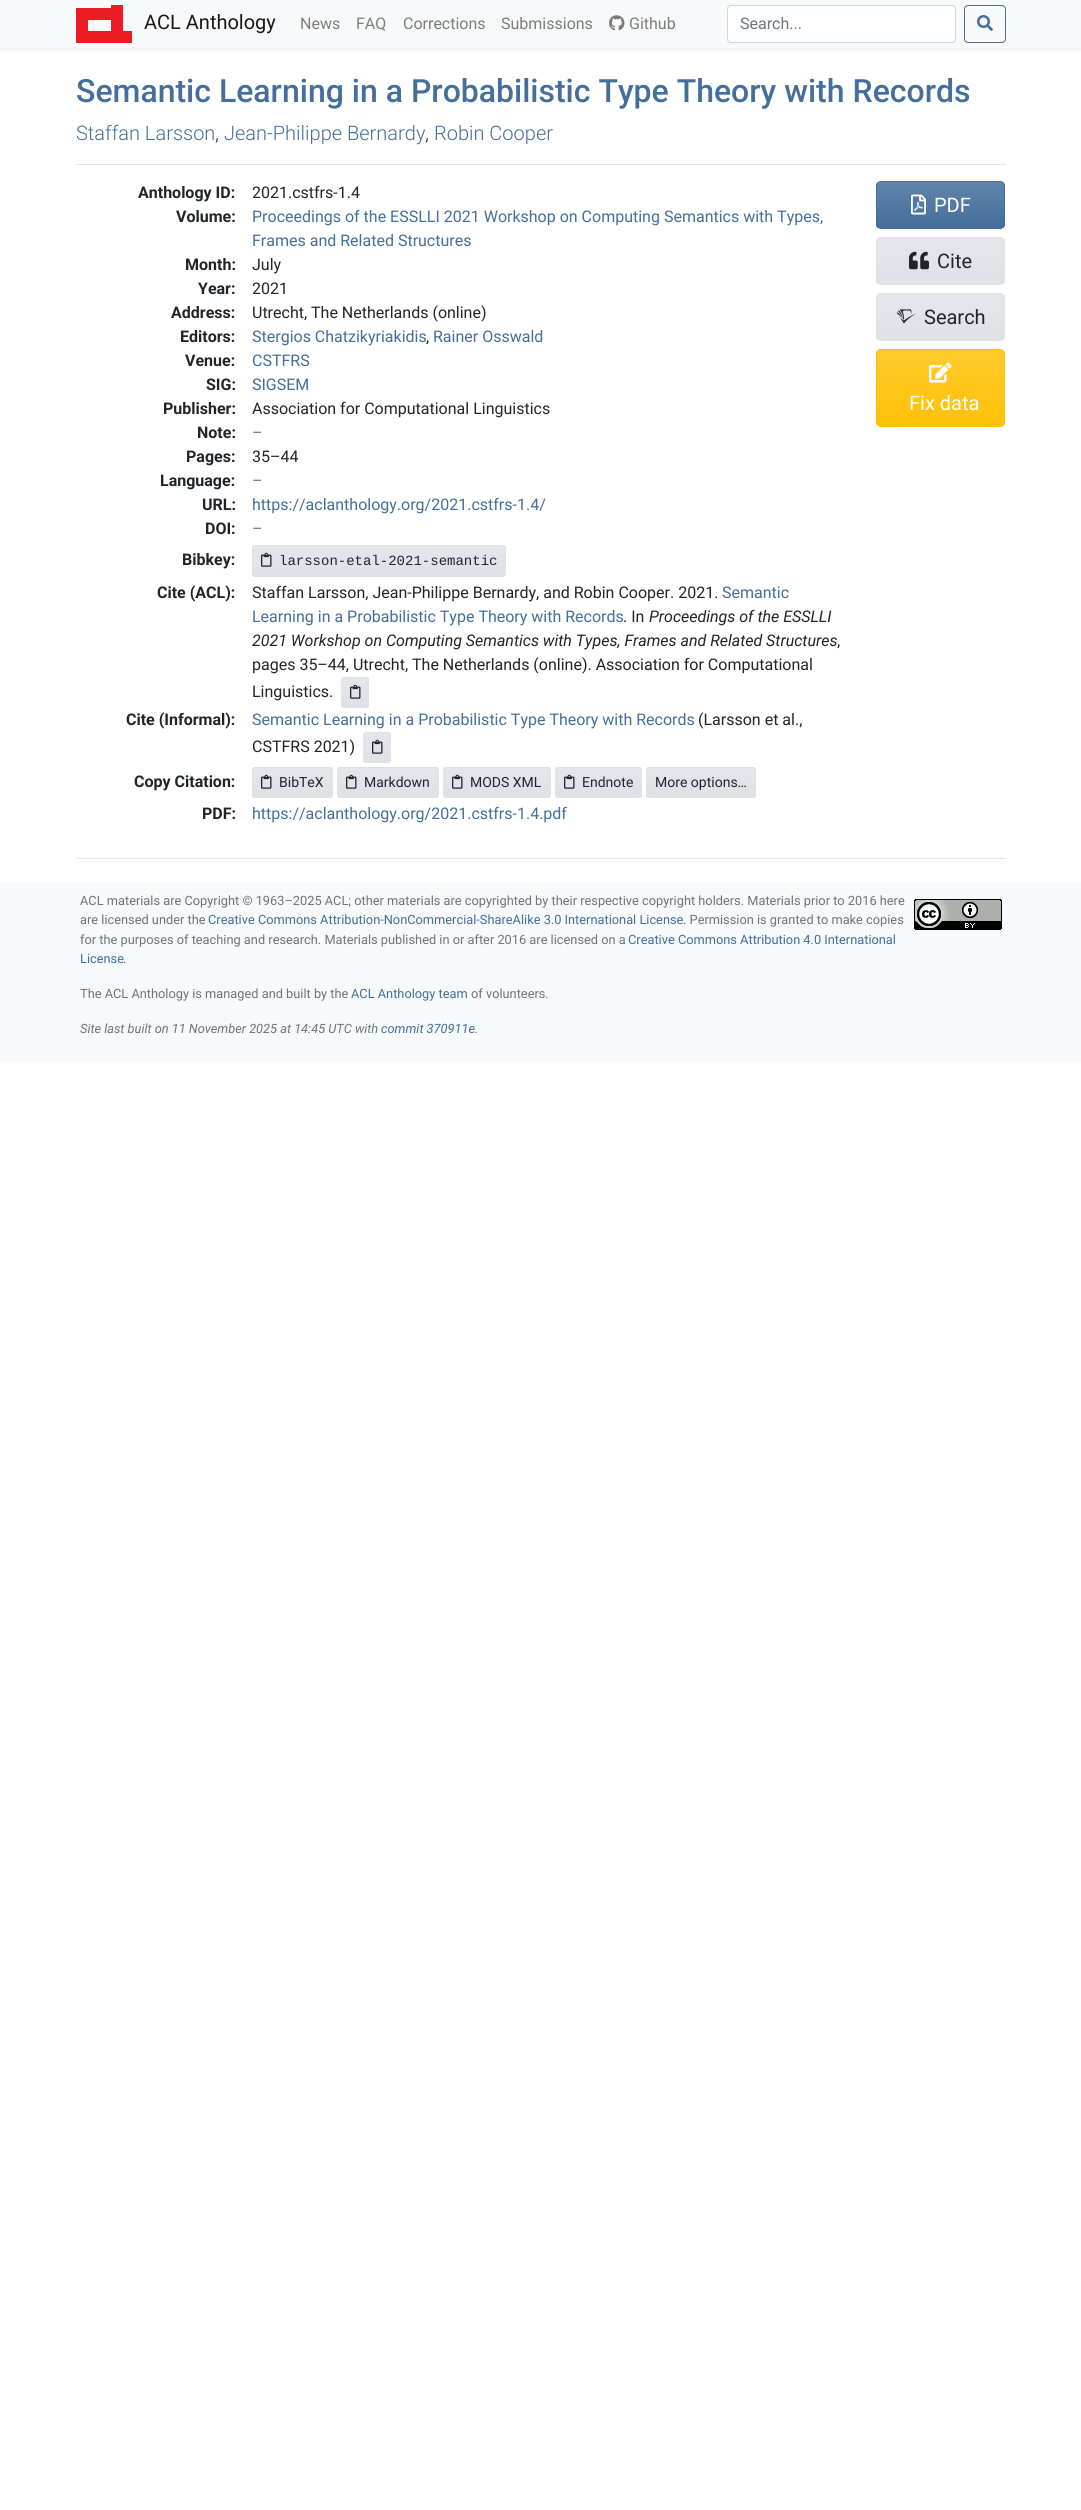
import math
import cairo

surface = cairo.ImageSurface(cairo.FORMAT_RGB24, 1081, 2510)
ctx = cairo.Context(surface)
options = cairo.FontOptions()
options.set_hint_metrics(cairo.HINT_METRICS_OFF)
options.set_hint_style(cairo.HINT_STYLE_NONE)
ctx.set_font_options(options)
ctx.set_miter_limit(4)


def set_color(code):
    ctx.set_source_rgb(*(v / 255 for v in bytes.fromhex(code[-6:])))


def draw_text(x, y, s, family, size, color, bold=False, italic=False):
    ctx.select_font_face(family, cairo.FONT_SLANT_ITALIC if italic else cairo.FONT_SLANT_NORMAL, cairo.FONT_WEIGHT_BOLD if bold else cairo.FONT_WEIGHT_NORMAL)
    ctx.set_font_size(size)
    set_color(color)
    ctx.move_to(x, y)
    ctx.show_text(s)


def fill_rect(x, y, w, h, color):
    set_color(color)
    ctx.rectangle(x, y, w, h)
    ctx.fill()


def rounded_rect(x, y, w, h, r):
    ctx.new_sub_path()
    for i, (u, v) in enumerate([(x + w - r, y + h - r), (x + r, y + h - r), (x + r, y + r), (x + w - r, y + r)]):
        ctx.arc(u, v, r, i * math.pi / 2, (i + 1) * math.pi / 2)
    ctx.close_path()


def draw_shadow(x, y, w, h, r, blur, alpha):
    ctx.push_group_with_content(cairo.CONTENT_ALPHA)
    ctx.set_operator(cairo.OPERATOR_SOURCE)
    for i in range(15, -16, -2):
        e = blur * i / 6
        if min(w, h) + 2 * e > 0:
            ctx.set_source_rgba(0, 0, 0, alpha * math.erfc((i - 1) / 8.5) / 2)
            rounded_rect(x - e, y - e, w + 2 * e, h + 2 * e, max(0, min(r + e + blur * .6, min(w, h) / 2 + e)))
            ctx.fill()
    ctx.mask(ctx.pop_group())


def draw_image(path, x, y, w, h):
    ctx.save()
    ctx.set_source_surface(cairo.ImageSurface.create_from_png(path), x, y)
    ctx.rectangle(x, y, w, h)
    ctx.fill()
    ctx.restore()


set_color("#ffffff")
ctx.paint()
set_color("#000000")
draw_shadow(0, 2, 1081, 48, 0, 2, 0.07)
fill_rect(0, 0, 1081, 48, "#f8f9fa")
set_color("#ed1c24")
ctx.set_fill_rule(cairo.FILL_RULE_EVEN_ODD)
ctx.new_path()
ctx.move_to(111, 5)
ctx.line_to(111, 8)
ctx.line_to(76, 8)
ctx.line_to(76, 43)
ctx.line_to(132, 43)
ctx.line_to(132, 31)
ctx.line_to(123, 31)
ctx.line_to(123, 5)
ctx.close_path()
ctx.move_to(88, 20)
ctx.line_to(111, 20)
ctx.line_to(111, 31)
ctx.line_to(88, 31)
ctx.close_path()
ctx.fill()
draw_text(144, 29, "ACL Anthology", "Roboto", 20, "#191919")
draw_text(300, 29, "News", "Roboto", 16, "#7c7d7d")
draw_text(356, 29, "FAQ", "Roboto", 16, "#7c7d7d")
draw_text(403, 29, "Corrections", "Roboto", 16, "#7c7d7d")
draw_text(501, 29, "Submissions", "Roboto", 16, "#7c7d7d")
draw_image("assets/img1.png", 609, 15, 16, 16)
draw_text(629, 29, "Github", "Roboto", 16, "#7c7d7d")
set_color("#ffffff")
rounded_rect(727.5, 5.5, 228, 37, 3.5)
ctx.fill_preserve()
set_color("#ced4da")
ctx.set_line_width(1)
ctx.stroke()
draw_text(740, 29, "Search...", "Roboto", 16, "#6c757d")
rounded_rect(964.5, 5.5, 41, 37, 3.5)
set_color("#446e9b")
ctx.stroke()
draw_image("assets/img2.png", 977, 15, 16, 16)
draw_text(76, 102, "Semantic Learning in a Probabilistic Type Theory with Records", "Roboto Medium", 32, "#446e9b")
draw_text(76, 140, "Staffan Larsson", "Roboto Light", 20, "#446e9b")
draw_text(215, 140, ",", "Roboto Light", 20, "#212529")
draw_text(224, 140, "Jean-Philippe Bernardy", "Roboto Light", 20, "#446e9b")
draw_text(425, 140, ",", "Roboto Light", 20, "#212529")
draw_text(434, 140, "Robin Cooper", "Roboto Light", 20, "#446e9b")
fill_rect(76, 164, 930, 1, "#e6e6e6")
draw_text(138, 198, "Anthology ID:", "Roboto", 16, "#212529", bold=True)
draw_text(252, 198, "2021.cstfrs-1.4", "Roboto", 16, "#212529")
draw_text(176, 222, "Volume:", "Roboto", 16, "#212529", bold=True)
draw_text(252, 222, "Proceedings of the ESSLLI 2021 Workshop on Computing Semantics with Types,", "Roboto", 16, "#446e9b")
draw_text(252, 246, "Frames and Related Structures", "Roboto", 16, "#446e9b")
draw_text(185, 270, "Month:", "Roboto", 16, "#212529", bold=True)
draw_text(252, 270, "July", "Roboto", 16, "#212529")
draw_text(198, 294, "Year:", "Roboto", 16, "#212529", bold=True)
draw_text(252, 294, "2021", "Roboto", 16, "#212529")
draw_text(171, 318, "Address:", "Roboto", 16, "#212529", bold=True)
draw_text(252, 318, "Utrecht, The Netherlands (online)", "Roboto", 16, "#212529")
draw_text(180, 342, "Editors:", "Roboto", 16, "#212529", bold=True)
draw_text(252, 342, "Stergios Chatzikyriakidis", "Roboto", 16, "#446e9b")
draw_text(426, 342, ",", "Roboto", 16, "#212529")
draw_text(433, 342, "Rainer Osswald", "Roboto", 16, "#446e9b")
draw_text(185, 366, "Venue:", "Roboto", 16, "#212529", bold=True)
draw_text(252, 366, "CSTFRS", "Roboto", 16, "#446e9b")
draw_text(206, 390, "SIG:", "Roboto", 16, "#212529", bold=True)
draw_text(252, 390, "SIGSEM", "Roboto", 16, "#446e9b")
draw_text(163, 414, "Publisher:", "Roboto", 16, "#212529", bold=True)
draw_text(252, 414, "Association for Computational Linguistics", "Roboto", 16, "#212529")
draw_text(197, 438, "Note:", "Roboto", 16, "#212529", bold=True)
draw_text(252, 438, "–", "Roboto", 16, "#6c757d")
draw_text(186, 462, "Pages:", "Roboto", 16, "#212529", bold=True)
draw_text(252, 462, "35–44", "Roboto", 16, "#212529")
draw_text(160, 486, "Language:", "Roboto", 16, "#212529", bold=True)
draw_text(252, 486, "–", "Roboto", 16, "#6c757d")
draw_text(202, 510, "URL:", "Roboto", 16, "#212529", bold=True)
draw_text(252, 510, "https://aclanthology.org/2021.cstfrs-1.4/", "Roboto", 16, "#446e9b")
draw_text(205, 534, "DOI:", "Roboto", 16, "#212529", bold=True)
draw_text(252, 534, "–", "Roboto", 16, "#6c757d")
draw_text(182, 565, "Bibkey:", "Roboto", 16, "#212529", bold=True)
ctx.save()
ctx.set_fill_rule(cairo.FILL_RULE_WINDING)
rounded_rect(252, 545, 254, 32, 3)
ctx.clip()
gradient = cairo.LinearGradient(379, 546, 379, 576)
gradient.add_color_stop_rgba(0, 0.89, 0.902, 0.918, 1)
gradient.add_color_stop_rgba(1, 0.871, 0.886, 0.902, 1)
ctx.set_source(gradient)
ctx.rectangle(252, 546, 254, 30)
ctx.fill()
ctx.restore()
rounded_rect(252.5, 545.5, 253, 31, 2.5)
set_color("#dee2e6")
ctx.stroke()
draw_image("assets/img3.png", 261, 552, 11, 15)
draw_text(279, 565, "larsson-etal-2021-semantic", "Liberation Mono", 14, "#212529")
draw_text(157, 598, "Cite (ACL):", "Roboto", 16, "#212529", bold=True)
draw_text(252, 598, "Staffan Larsson, Jean-Philippe Bernardy, and Robin Cooper. 2021.", "Roboto", 16, "#212529")
draw_text(722, 598, "Semantic", "Roboto", 16, "#446e9b")
draw_text(252, 622, "Learning in a Probabilistic Type Theory with Records", "Roboto", 16, "#446e9b")
draw_text(623, 622, ". In", "Roboto", 16, "#212529")
draw_text(649, 622, "Proceedings of the ESSLLI", "Roboto", 16, "#212529", italic=True)
draw_text(252, 646, "2021 Workshop on Computing Semantics with Types, Frames and Related Structures", "Roboto", 16, "#212529", italic=True)
draw_text(837, 646, ",", "Roboto", 16, "#212529")
draw_text(252, 670, "pages 35–44, Utrecht, The Netherlands (online). Association for Computational", "Roboto", 16, "#212529")
draw_text(252, 697, "Linguistics.", "Roboto", 16, "#212529")
ctx.save()
ctx.set_fill_rule(cairo.FILL_RULE_WINDING)
rounded_rect(341, 677, 28, 31, 3)
ctx.clip()
gradient = cairo.LinearGradient(355, 678, 355, 707)
gradient.add_color_stop_rgba(0, 0.89, 0.902, 0.918, 1)
gradient.add_color_stop_rgba(1, 0.871, 0.886, 0.902, 1)
ctx.set_source(gradient)
ctx.rectangle(341, 678, 28, 29)
ctx.fill()
ctx.restore()
rounded_rect(341.5, 677.5, 27, 30, 2.5)
set_color("#dee2e6")
ctx.stroke()
draw_image("assets/img4.png", 350, 684, 11, 15)
draw_text(126, 725, "Cite (Informal):", "Roboto", 16, "#212529", bold=True)
draw_text(252, 725, "Semantic Learning in a Probabilistic Type Theory with Records", "Roboto", 16, "#446e9b")
draw_text(698, 725, "(Larsson et al.,", "Roboto", 16, "#212529")
draw_text(252, 752, "CSTFRS 2021)", "Roboto", 16, "#212529")
ctx.save()
ctx.set_fill_rule(cairo.FILL_RULE_WINDING)
rounded_rect(363, 732, 28, 31, 3)
ctx.clip()
gradient = cairo.LinearGradient(377, 733, 377, 762)
gradient.add_color_stop_rgba(0, 0.89, 0.902, 0.918, 1)
gradient.add_color_stop_rgba(1, 0.871, 0.886, 0.902, 1)
ctx.set_source(gradient)
ctx.rectangle(363, 733, 28, 29)
ctx.fill()
ctx.restore()
rounded_rect(363.5, 732.5, 27, 30, 2.5)
set_color("#dee2e6")
ctx.stroke()
draw_image("assets/img4.png", 372, 739, 11, 15)
draw_text(134, 787, "Copy Citation:", "Roboto", 16, "#212529", bold=True)
ctx.save()
ctx.set_fill_rule(cairo.FILL_RULE_WINDING)
rounded_rect(252, 767, 81, 31, 3)
ctx.clip()
gradient = cairo.LinearGradient(293, 768, 293, 797)
gradient.add_color_stop_rgba(0, 0.89, 0.902, 0.918, 1)
gradient.add_color_stop_rgba(1, 0.871, 0.886, 0.902, 1)
ctx.set_source(gradient)
ctx.rectangle(252, 768, 81, 29)
ctx.fill()
ctx.restore()
rounded_rect(252.5, 767.5, 80, 30, 2.5)
set_color("#dee2e6")
ctx.stroke()
draw_image("assets/img4.png", 261, 774, 11, 15)
draw_text(279, 787, "BibTeX", "Roboto", 14, "#212529")
ctx.save()
ctx.set_fill_rule(cairo.FILL_RULE_WINDING)
rounded_rect(337, 767, 102, 31, 3)
ctx.clip()
gradient = cairo.LinearGradient(388, 768, 388, 797)
gradient.add_color_stop_rgba(0, 0.89, 0.902, 0.918, 1)
gradient.add_color_stop_rgba(1, 0.871, 0.886, 0.902, 1)
ctx.set_source(gradient)
ctx.rectangle(337, 768, 102, 29)
ctx.fill()
ctx.restore()
rounded_rect(337.5, 767.5, 101, 30, 2.5)
set_color("#dee2e6")
ctx.stroke()
draw_image("assets/img4.png", 346, 774, 11, 15)
draw_text(364, 787, "Markdown", "Roboto", 14, "#212529")
ctx.save()
ctx.set_fill_rule(cairo.FILL_RULE_WINDING)
rounded_rect(443, 767, 108, 31, 3)
ctx.clip()
gradient = cairo.LinearGradient(497, 768, 497, 797)
gradient.add_color_stop_rgba(0, 0.89, 0.902, 0.918, 1)
gradient.add_color_stop_rgba(1, 0.871, 0.886, 0.902, 1)
ctx.set_source(gradient)
ctx.rectangle(443, 768, 108, 29)
ctx.fill()
ctx.restore()
rounded_rect(443.5, 767.5, 107, 30, 2.5)
set_color("#dee2e6")
ctx.stroke()
draw_image("assets/img4.png", 452, 774, 11, 15)
draw_text(470, 787, "MODS XML", "Roboto", 14, "#212529")
ctx.save()
ctx.set_fill_rule(cairo.FILL_RULE_WINDING)
rounded_rect(555, 767, 87, 31, 3)
ctx.clip()
gradient = cairo.LinearGradient(599, 768, 599, 797)
gradient.add_color_stop_rgba(0, 0.89, 0.902, 0.918, 1)
gradient.add_color_stop_rgba(1, 0.871, 0.886, 0.902, 1)
ctx.set_source(gradient)
ctx.rectangle(555, 768, 87, 29)
ctx.fill()
ctx.restore()
rounded_rect(555.5, 767.5, 86, 30, 2.5)
set_color("#dee2e6")
ctx.stroke()
draw_image("assets/img4.png", 564, 774, 11, 15)
draw_text(582, 787, "Endnote", "Roboto", 14, "#212529")
ctx.save()
ctx.set_fill_rule(cairo.FILL_RULE_WINDING)
rounded_rect(646, 767, 110, 31, 3)
ctx.clip()
gradient = cairo.LinearGradient(701, 768, 701, 797)
gradient.add_color_stop_rgba(0, 0.89, 0.902, 0.918, 1)
gradient.add_color_stop_rgba(1, 0.871, 0.886, 0.902, 1)
ctx.set_source(gradient)
ctx.rectangle(646, 768, 110, 29)
ctx.fill()
ctx.restore()
rounded_rect(646.5, 767.5, 109, 30, 2.5)
set_color("#dee2e6")
ctx.stroke()
draw_text(655, 787, "More options…", "Roboto", 14, "#212529")
draw_text(202, 819, "PDF:", "Roboto", 16, "#212529", bold=True)
draw_text(252, 819, "https://aclanthology.org/2021.cstfrs-1.4.pdf", "Roboto", 16, "#446e9b")
ctx.save()
ctx.set_fill_rule(cairo.FILL_RULE_WINDING)
rounded_rect(876, 181, 129, 48, 5)
ctx.clip()
gradient = cairo.LinearGradient(941, 182, 941, 228)
gradient.add_color_stop_rgba(0, 0.376, 0.518, 0.667, 1)
gradient.add_color_stop_rgba(1, 0.267, 0.431, 0.608, 1)
ctx.set_source(gradient)
ctx.rectangle(876, 182, 129, 46)
ctx.fill()
ctx.restore()
rounded_rect(876.5, 181.5, 128, 47, 4.5)
ctx.stroke()
draw_image("assets/img5.png", 911, 194, 15, 21)
draw_text(934, 212, "PDF", "Roboto", 20, "#ffffff")
ctx.save()
ctx.set_fill_rule(cairo.FILL_RULE_WINDING)
rounded_rect(876, 237, 129, 48, 5)
ctx.clip()
gradient = cairo.LinearGradient(941, 238, 941, 284)
gradient.add_color_stop_rgba(0, 0.89, 0.902, 0.918, 1)
gradient.add_color_stop_rgba(1, 0.871, 0.886, 0.902, 1)
ctx.set_source(gradient)
ctx.rectangle(876, 238, 129, 46)
ctx.fill()
ctx.restore()
rounded_rect(876.5, 237.5, 128, 47, 4.5)
set_color("#dee2e6")
ctx.stroke()
draw_image("assets/img6.png", 909, 251, 20, 19)
draw_text(937, 268, "Cite", "Roboto", 20, "#212529")
ctx.save()
ctx.set_fill_rule(cairo.FILL_RULE_WINDING)
rounded_rect(876, 293, 129, 48, 5)
ctx.clip()
gradient = cairo.LinearGradient(941, 294, 941, 340)
gradient.add_color_stop_rgba(0, 0.89, 0.902, 0.918, 1)
gradient.add_color_stop_rgba(1, 0.871, 0.886, 0.902, 1)
ctx.set_source(gradient)
ctx.rectangle(876, 294, 129, 46)
ctx.fill()
ctx.restore()
rounded_rect(876.5, 293.5, 128, 47, 4.5)
set_color("#dee2e6")
ctx.stroke()
draw_image("assets/img7.png", 896, 309, 20, 15)
draw_text(924, 324, "Search", "Roboto", 20, "#212529")
ctx.save()
ctx.set_fill_rule(cairo.FILL_RULE_WINDING)
rounded_rect(876, 349, 129, 78, 5)
ctx.clip()
gradient = cairo.LinearGradient(941, 350, 941, 426)
gradient.add_color_stop_rgba(0, 1, 0.792, 0.173, 1)
gradient.add_color_stop_rgba(1, 1, 0.757, 0.027, 1)
ctx.set_source(gradient)
ctx.rectangle(876, 350, 129, 76)
ctx.fill()
ctx.restore()
rounded_rect(876.5, 349.5, 128, 77, 4.5)
set_color("#ffc107")
ctx.stroke()
draw_image("assets/img8.png", 929, 362, 23, 21)
draw_text(909, 410, "Fix data", "Roboto", 20, "#ffffff")
fill_rect(76, 858, 930, 1, "#e6e6e6")
fill_rect(0, 883, 1081, 179, "#f8f9fa")
draw_text(80, 905, "ACL materials are Copyright © 1963–2025 ACL; other materials are copyrighted by their respective copyright holders. Materials prior to 2016 here", "Roboto", 12.8, "#6c757d")
draw_image("assets/img9.png", 914, 899, 88, 31)
draw_text(80, 924, "are licensed under the", "Roboto", 12.8, "#6c757d")
draw_text(208, 924, "Creative Commons Attribution-NonCommercial-ShareAlike 3.0 International License", "Roboto", 12.8, "#446e9b")
draw_text(683, 924, ". Permission is granted to make copies", "Roboto", 12.8, "#6c757d")
draw_text(80, 944, "for the purposes of teaching and research. Materials published in or after 2016 are licensed on a", "Roboto", 12.8, "#6c757d")
draw_text(628, 944, "Creative Commons Attribution 4.0 International", "Roboto", 12.8, "#446e9b")
draw_text(80, 963, "License", "Roboto", 12.8, "#446e9b")
draw_text(123, 963, ".", "Roboto", 12.8, "#6c757d")
draw_text(80, 998, "The ACL Anthology is managed and built by the", "Roboto", 12.8, "#6c757d")
draw_text(351, 998, "ACL Anthology team", "Roboto", 12.8, "#446e9b")
draw_text(471, 998, "of volunteers.", "Roboto", 12.8, "#6c757d")
draw_text(80, 1033, "Site last built on 11 November 2025 at 14:45 UTC with", "Roboto", 12.8, "#6c757d", italic=True)
draw_text(381, 1033, "commit 370911e", "Roboto", 12.8, "#446e9b", italic=True)
draw_text(475, 1033, ".", "Roboto", 12.8, "#6c757d", italic=True)
surface.write_to_png("output.png")
